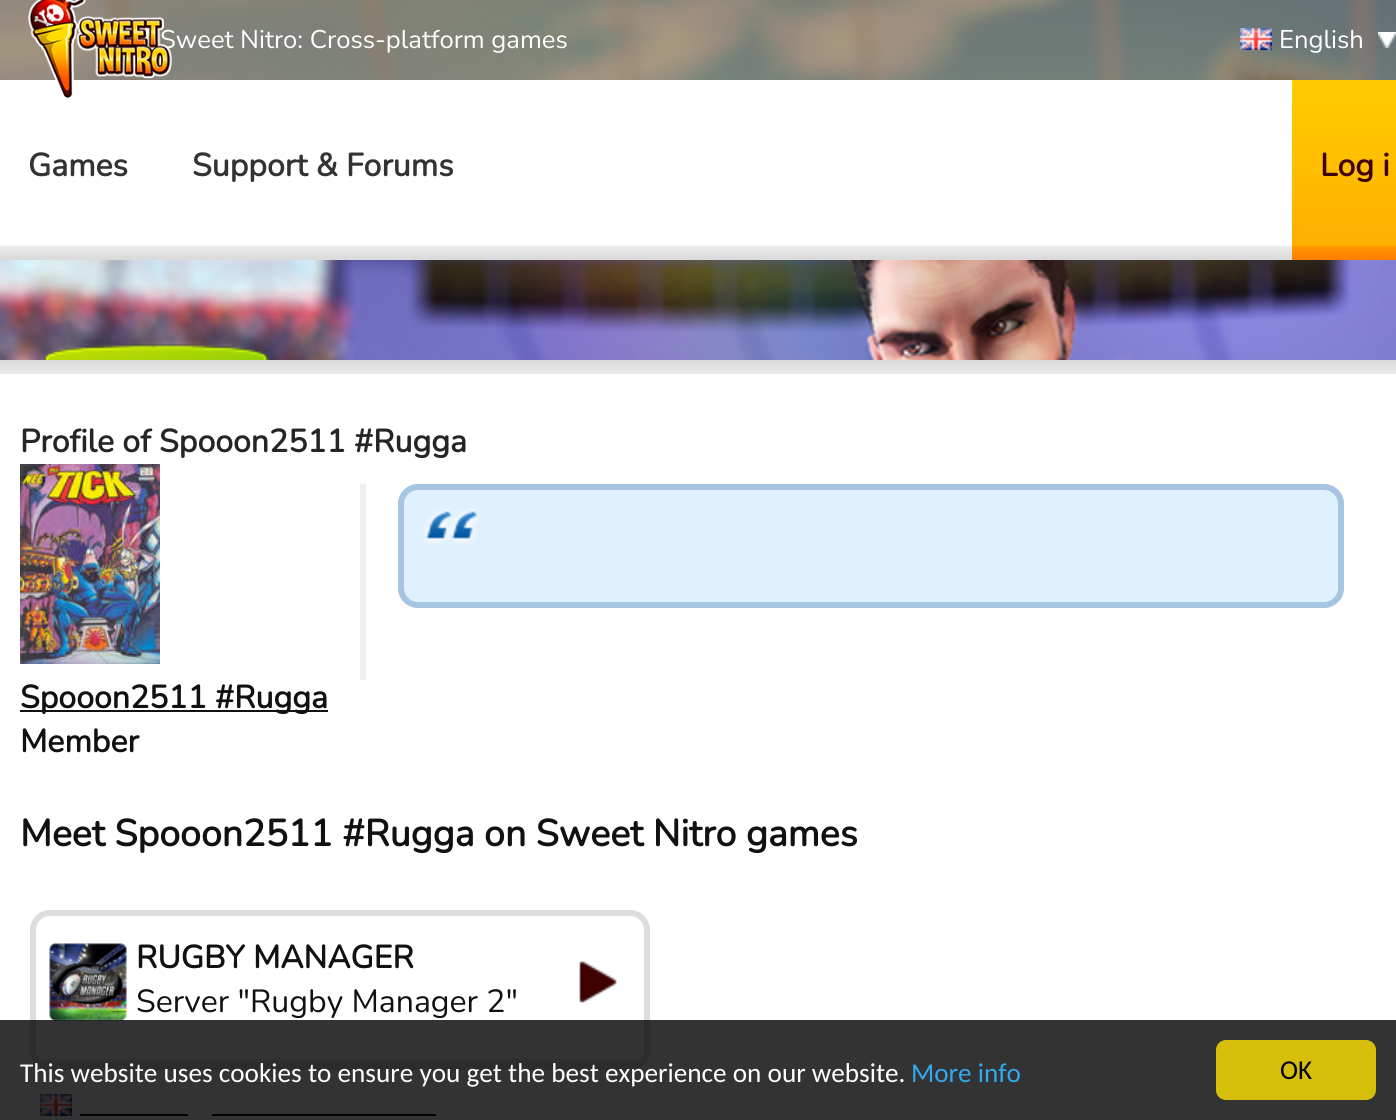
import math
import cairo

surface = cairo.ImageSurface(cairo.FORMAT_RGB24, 1396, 1120)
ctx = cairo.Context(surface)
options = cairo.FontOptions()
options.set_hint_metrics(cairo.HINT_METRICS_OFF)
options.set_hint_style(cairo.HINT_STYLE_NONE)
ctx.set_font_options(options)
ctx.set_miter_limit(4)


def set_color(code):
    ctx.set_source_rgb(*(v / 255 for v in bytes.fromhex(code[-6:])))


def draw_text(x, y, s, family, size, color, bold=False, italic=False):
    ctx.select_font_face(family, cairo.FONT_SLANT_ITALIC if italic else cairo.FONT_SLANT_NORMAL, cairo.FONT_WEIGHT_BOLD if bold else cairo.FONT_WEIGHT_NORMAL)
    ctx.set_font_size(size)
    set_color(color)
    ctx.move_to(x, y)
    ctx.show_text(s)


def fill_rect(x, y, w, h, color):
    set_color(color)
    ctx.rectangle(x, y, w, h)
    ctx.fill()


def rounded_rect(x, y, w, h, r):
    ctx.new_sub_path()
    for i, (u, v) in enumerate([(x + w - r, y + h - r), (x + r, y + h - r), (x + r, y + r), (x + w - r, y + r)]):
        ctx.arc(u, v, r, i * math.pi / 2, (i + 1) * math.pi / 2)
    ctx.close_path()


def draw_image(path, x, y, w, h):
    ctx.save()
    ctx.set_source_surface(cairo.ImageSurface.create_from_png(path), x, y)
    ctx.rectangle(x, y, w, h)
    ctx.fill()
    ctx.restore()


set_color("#ffffff")
ctx.paint()
draw_image("assets/img1.png", 0, 0, 1396, 360)
ctx.set_source_rgba(0.427, 0.251, 0, 0.5)
ctx.rectangle(0, 0, 1396, 80)
ctx.fill()
draw_text(160, 48, "Sweet Nitro: Cross-platform games", "Nunito ExtraLight", 25.6, "#ffffff")
draw_image("assets/img2.png", 1378, 32, 18, 16)
draw_image("assets/img3.png", 1240, 28, 32, 22)
draw_text(1279, 48, "English", "Nunito ExtraLight", 25.6, "#ffffff")
draw_image("assets/img4.png", 0, 80, 1292, 180)
draw_image("assets/img5.png", 28, 0, 144, 98)
draw_text(28, 176, "Games", "Nunito", 32, "#333333", bold=True)
draw_text(192, 176, "Support & Forums", "Nunito", 32, "#333333", bold=True)
draw_image("assets/img6.png", 1292, 80, 104, 180)
draw_text(1320, 176, "Log i", "Nunito", 32, "#3f0000", bold=True)
draw_image("assets/img7.png", 0, 360, 1396, 14)
draw_text(20, 452, "Profile of Spooon2511 #Rugga", "Nunito", 32, "#252525", bold=True)
fill_rect(360, 484, 6, 196, "#efefef")
set_color("#dff0ff")
rounded_rect(398, 484, 946, 124, 20)
ctx.fill()
draw_image("assets/img8.png", 423, 507, 57, 37)
rounded_rect(401, 487, 940, 118, 17)
set_color("#a5c5e0")
ctx.set_line_width(6)
ctx.stroke()
draw_image("assets/img9.png", 20, 464, 140, 200)
fill_rect(20, 710, 308, 2, "#111111")
draw_text(20, 708, "Spooon2511 #Rugga", "Nunito", 32, "#111111", bold=True)
draw_text(20, 752, "Member", "Nunito", 32, "#111111", bold=True)
draw_text(20, 846, "Meet Spooon2511 #Rugga on Sweet Nitro games", "Nunito", 37.4, "#111111", bold=True)
draw_image("assets/img10.png", 32, 1058, 616, 6)
rounded_rect(33, 913, 614, 154, 17)
set_color("#dddddd")
ctx.stroke()
draw_image("assets/img11.png", 49, 943, 78, 78)
draw_text(136, 968, "RUGBY MANAGER", "Nunito", 32, "#111111", bold=True)
draw_text(136, 1012, "Server \"Rugby Manager 2\"", "Nunito ExtraLight", 32, "#111111")
draw_image("assets/img12.png", 579, 961, 38, 42)
draw_image("assets/img3.png", 40, 1094, 32, 22)
fill_rect(80, 1114, 108, 2, "#111111")
fill_rect(212, 1114, 224, 2, "#111111")
ctx.set_source_rgba(0, 0, 0, 0.8)
ctx.rectangle(0, 1020, 1396, 100)
ctx.fill()
draw_text(20, 1082, "This website uses cookies to ensure you get the best experience on our website.", "Carlito", 27.2, "#ffffff")
draw_text(911, 1082, "More info", "Carlito", 27.2, "#31a8f0")
set_color("#d6bf0a")
rounded_rect(1216, 1040, 160, 60, 10)
ctx.fill()
draw_text(1280, 1079, "OK", "Carlito", 27.2, "#000000")
surface.write_to_png("output.png")
